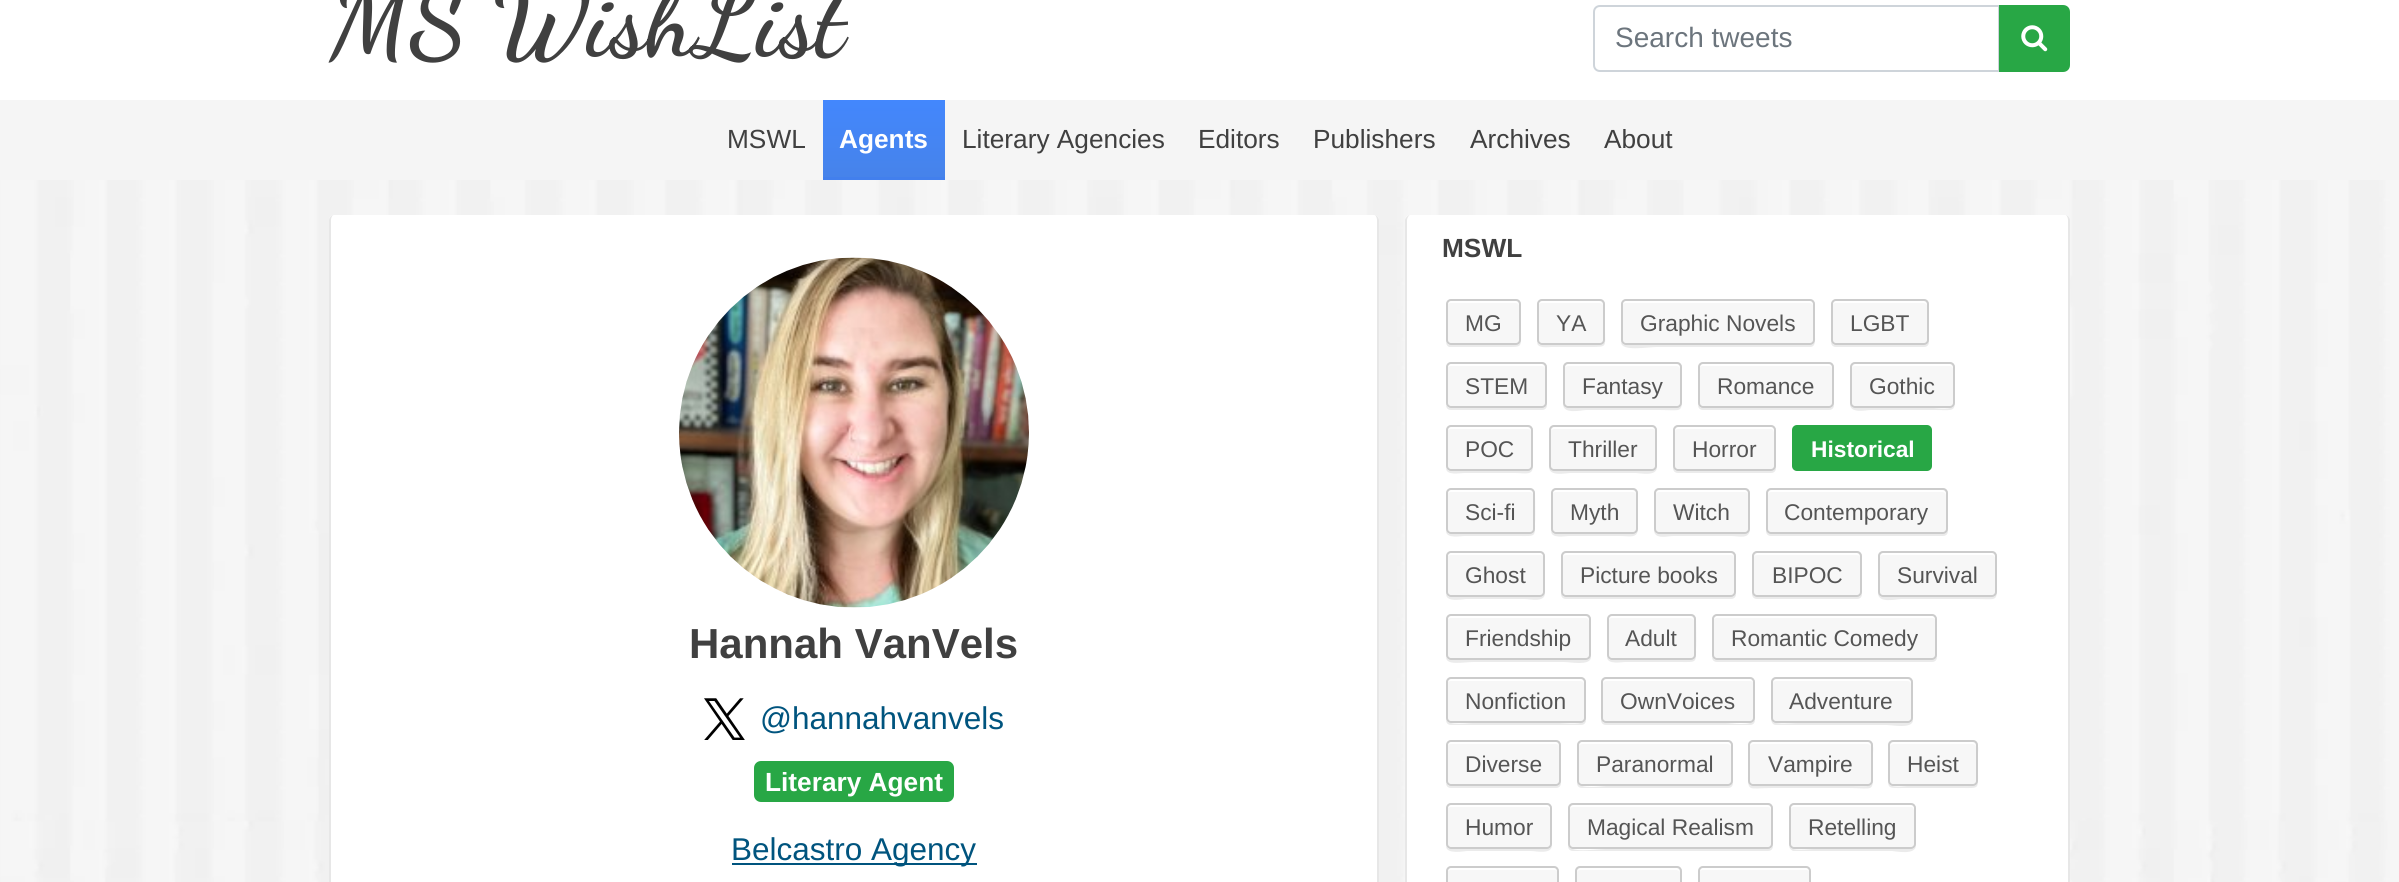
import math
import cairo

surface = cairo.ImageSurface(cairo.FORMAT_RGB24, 2399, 882)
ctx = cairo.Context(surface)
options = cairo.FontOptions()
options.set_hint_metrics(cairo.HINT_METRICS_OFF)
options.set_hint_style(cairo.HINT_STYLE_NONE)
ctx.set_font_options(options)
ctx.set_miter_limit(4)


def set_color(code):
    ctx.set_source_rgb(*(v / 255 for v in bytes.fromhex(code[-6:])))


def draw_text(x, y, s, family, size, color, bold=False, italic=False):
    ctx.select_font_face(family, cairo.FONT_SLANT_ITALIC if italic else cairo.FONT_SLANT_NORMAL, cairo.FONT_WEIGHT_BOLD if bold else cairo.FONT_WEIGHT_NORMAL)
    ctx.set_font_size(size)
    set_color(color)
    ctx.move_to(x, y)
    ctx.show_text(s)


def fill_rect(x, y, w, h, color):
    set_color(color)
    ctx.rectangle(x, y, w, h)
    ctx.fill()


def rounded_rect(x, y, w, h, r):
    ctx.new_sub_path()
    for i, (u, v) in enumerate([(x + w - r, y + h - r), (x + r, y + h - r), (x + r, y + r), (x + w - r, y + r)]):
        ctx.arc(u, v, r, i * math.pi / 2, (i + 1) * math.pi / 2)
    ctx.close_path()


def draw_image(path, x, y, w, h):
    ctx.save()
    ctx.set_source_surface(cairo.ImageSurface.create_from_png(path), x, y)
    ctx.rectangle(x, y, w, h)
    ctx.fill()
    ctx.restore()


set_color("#ffffff")
ctx.paint()
draw_image("assets/img1.png", 0, 180, 2399, 702)
draw_text(329, 54, "MS WishList", "Dancing Script", 99.75, "#404040", bold=True)
ctx.new_path()
ctx.move_to(1600, 6)
ctx.line_to(1999, 6)
ctx.line_to(1999, 71)
ctx.line_to(1600, 71)
ctx.curve_to(1596.5, 71, 1594, 68.5, 1594, 65)
ctx.line_to(1594, 12)
ctx.curve_to(1594, 8.5, 1596.5, 6, 1600, 6)
ctx.close_path()
set_color("#ced4da")
ctx.stroke()
draw_text(1615, 47, "Search tweets", "Liberation Sans", 28, "#6c757d")
set_color("#28a745")
ctx.new_path()
ctx.move_to(2000, 6)
ctx.line_to(2063, 6)
ctx.curve_to(2066.5, 6, 2069, 8.5, 2069, 12)
ctx.line_to(2069, 65)
ctx.curve_to(2069, 68.5, 2066.5, 71, 2063, 71)
ctx.line_to(2000, 71)
ctx.close_path()
ctx.fill_preserve()
ctx.stroke()
draw_image("assets/img2.png", 2021, 25, 27, 27)
fill_rect(0, 100, 2399, 80, "#f5f5f5")
draw_text(727, 148, "MSWL", "Liberation Sans", 26.25, "#404040")
gradient = cairo.LinearGradient(884, 100, 884, 177)
gradient.add_color_stop_rgba(0, 0.263, 0.529, 0.992, 1)
gradient.add_color_stop_rgba(1, 0.275, 0.514, 0.918, 1)
ctx.set_source(gradient)
ctx.rectangle(823, 100, 122, 77)
ctx.fill()
fill_rect(823, 177, 122, 3, "#427fed")
draw_text(839, 148, "Agents", "Liberation Sans", 26.25, "#ffffff", bold=True)
draw_text(962, 148, "Literary Agencies", "Liberation Sans", 26.25, "#404040")
draw_text(1198, 148, "Editors", "Liberation Sans", 26.25, "#404040")
draw_text(1313, 148, "Publishers", "Liberation Sans", 26.25, "#404040")
draw_text(1470, 148, "Archives", "Liberation Sans", 26.25, "#404040")
draw_text(1604, 148, "About", "Liberation Sans", 26.25, "#404040")
set_color("#ffffff")
rounded_rect(329, 215, 1050, 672, 5)
ctx.fill()
set_color("#e7e7e7")
ctx.set_fill_rule(cairo.FILL_RULE_EVEN_ODD)
ctx.new_path()
ctx.move_to(334, 215)
ctx.line_to(1374, 215)
ctx.curve_to(1377, 215, 1379, 218, 1379, 220)
ctx.line_to(1379, 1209)
ctx.curve_to(1379, 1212, 1377, 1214, 1374, 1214)
ctx.line_to(334, 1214)
ctx.curve_to(331, 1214, 329, 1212, 329, 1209)
ctx.line_to(329, 220)
ctx.curve_to(329, 218, 331, 215, 334, 215)
ctx.close_path()
ctx.move_to(334, 215)
ctx.line_to(1374, 215)
ctx.curve_to(1376, 215, 1377, 218, 1377, 220)
ctx.line_to(1377, 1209)
ctx.curve_to(1377, 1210, 1376, 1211, 1374, 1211)
ctx.line_to(334, 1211)
ctx.curve_to(332, 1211, 331, 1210, 331, 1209)
ctx.line_to(331, 220)
ctx.curve_to(331, 218, 332, 215, 334, 215)
ctx.close_path()
ctx.fill()
draw_image("assets/img3.png", 679, 257, 350, 351)
draw_text(689, 658, "Hannah VanVels", "Liberation Sans", 42, "#404040", bold=True)
draw_image("assets/img4.png", 704, 698, 41, 42)
draw_text(760, 729, "@hannahvanvels", "Liberation Sans", 31.5, "#00547e")
set_color("#28a745")
rounded_rect(754, 761, 200, 41, 7)
ctx.fill()
draw_text(765, 791, "Literary Agent", "Liberation Sans", 26.25, "#ffffff", bold=True)
fill_rect(732, 863, 245, 2, "#00547e")
draw_text(731, 860, "Belcastro Agency", "Liberation Sans", 31.5, "#00547e")
set_color("#ffffff")
rounded_rect(1405, 215, 665, 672, 5)
ctx.fill()
set_color("#e7e7e7")
ctx.new_path()
ctx.move_to(1410, 215)
ctx.line_to(2065, 215)
ctx.curve_to(2068, 215, 2070, 218, 2070, 220)
ctx.line_to(2070, 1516)
ctx.curve_to(2070, 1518, 2068, 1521, 2065, 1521)
ctx.line_to(1410, 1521)
ctx.curve_to(1408, 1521, 1405, 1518, 1405, 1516)
ctx.line_to(1405, 220)
ctx.curve_to(1405, 218, 1408, 215, 1410, 215)
ctx.close_path()
ctx.move_to(1410, 215)
ctx.line_to(2065, 215)
ctx.curve_to(2067, 215, 2068, 218, 2068, 220)
ctx.line_to(2068, 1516)
ctx.curve_to(2068, 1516, 2067, 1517, 2065, 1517)
ctx.line_to(1410, 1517)
ctx.curve_to(1409, 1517, 1407, 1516, 1407, 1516)
ctx.line_to(1407, 220)
ctx.curve_to(1407, 218, 1409, 215, 1410, 215)
ctx.close_path()
ctx.fill()
draw_text(1442, 257, "MSWL", "Liberation Sans", 26.25, "#404040", bold=True)
set_color("#ebebeb")
ctx.set_fill_rule(cairo.FILL_RULE_WINDING)
ctx.new_path()
ctx.move_to(1446, 342)
ctx.curve_to(1446, 344, 1447, 346, 1449, 347)
ctx.line_to(1505, 347)
ctx.curve_to(1523, 347, 1521, 348, 1521, 330)
ctx.line_to(1521, 304)
ctx.line_to(1521, 340)
ctx.curve_to(1521, 342, 1518, 345, 1516, 345)
ctx.line_to(1451, 345)
ctx.curve_to(1449, 345, 1447, 344, 1446, 342)
ctx.close_path()
ctx.fill()
set_color("#f7f7f7")
rounded_rect(1446, 299, 75, 46, 5)
ctx.fill()
set_color("#ffffff")
ctx.new_path()
ctx.move_to(1451, 303)
ctx.line_to(1516, 303)
ctx.curve_to(1517, 303, 1519, 304, 1519, 306)
ctx.curve_to(1519, 298, 1509, 301, 1504, 301)
ctx.line_to(1462, 301)
ctx.curve_to(1457, 301, 1447, 298, 1447, 306)
ctx.curve_to(1447, 304, 1449, 303, 1451, 303)
ctx.close_path()
ctx.fill()
rounded_rect(1447, 300, 73, 44, 4)
set_color("#cccccc")
ctx.stroke()
draw_text(1465, 331, "MG", "Liberation Sans", 22.75, "#555555")
set_color("#ebebeb")
ctx.new_path()
ctx.move_to(1537, 342)
ctx.curve_to(1537, 349, 1548, 347, 1552, 347)
ctx.line_to(1590, 347)
ctx.curve_to(1608, 347, 1605, 347, 1605, 330)
ctx.line_to(1605, 304)
ctx.line_to(1605, 340)
ctx.curve_to(1605, 342, 1602, 345, 1600, 345)
ctx.line_to(1542, 345)
ctx.curve_to(1540, 345, 1538, 344, 1537, 342)
ctx.close_path()
ctx.fill()
set_color("#f7f7f7")
rounded_rect(1537, 299, 68, 46, 5)
ctx.fill()
set_color("#ffffff")
ctx.new_path()
ctx.move_to(1542, 303)
ctx.line_to(1600, 303)
ctx.curve_to(1601, 303, 1603, 304, 1603, 306)
ctx.curve_to(1603, 299, 1595, 301, 1590, 301)
ctx.line_to(1552, 301)
ctx.curve_to(1546, 301, 1538, 299, 1538, 306)
ctx.curve_to(1538, 304, 1540, 303, 1542, 303)
ctx.close_path()
ctx.fill()
rounded_rect(1538, 300, 66, 44, 4)
set_color("#cccccc")
ctx.stroke()
draw_text(1556, 331, "YA", "Liberation Sans", 22.75, "#555555")
set_color("#ebebeb")
ctx.new_path()
ctx.move_to(1621, 342)
ctx.curve_to(1621, 352, 1647, 347, 1657, 347)
ctx.line_to(1810, 347)
ctx.curve_to(1816, 347, 1815, 340, 1815, 336)
ctx.line_to(1815, 304)
ctx.line_to(1815, 340)
ctx.curve_to(1815, 342, 1812, 345, 1810, 345)
ctx.line_to(1626, 345)
ctx.curve_to(1624, 345, 1622, 344, 1621, 342)
ctx.close_path()
ctx.fill()
set_color("#f7f7f7")
rounded_rect(1621, 299, 194, 46, 5)
ctx.fill()
set_color("#ffffff")
ctx.new_path()
ctx.move_to(1626, 303)
ctx.line_to(1810, 303)
ctx.curve_to(1811, 303, 1813, 304, 1813, 306)
ctx.curve_to(1813, 303, 1812, 301, 1809, 301)
ctx.line_to(1625, 301)
ctx.curve_to(1623, 302, 1622, 304, 1622, 306)
ctx.curve_to(1622, 304, 1624, 303, 1626, 303)
ctx.close_path()
ctx.fill()
rounded_rect(1622, 300, 192, 44, 4)
set_color("#cccccc")
ctx.stroke()
draw_text(1640, 331, "Graphic Novels", "Liberation Sans", 22.75, "#555555")
set_color("#ebebeb")
ctx.new_path()
ctx.move_to(1831, 342)
ctx.curve_to(1831, 345, 1833, 347, 1836, 347)
ctx.line_to(1924, 347)
ctx.curve_to(1927, 347, 1929, 345, 1929, 342)
ctx.line_to(1929, 306)
ctx.line_to(1928, 304)
ctx.line_to(1928, 328)
ctx.curve_to(1928, 332, 1931, 345, 1923, 345)
ctx.line_to(1834, 345)
ctx.curve_to(1833, 344, 1832, 343, 1831, 342)
ctx.close_path()
ctx.fill()
set_color("#f7f7f7")
rounded_rect(1831, 299, 98, 46, 5)
ctx.fill()
set_color("#ffffff")
ctx.new_path()
ctx.move_to(1836, 303)
ctx.line_to(1923, 303)
ctx.curve_to(1925, 303, 1927, 304, 1927, 306)
ctx.curve_to(1927, 297, 1913, 301, 1908, 301)
ctx.line_to(1850, 301)
ctx.curve_to(1846, 301, 1832, 297, 1832, 306)
ctx.curve_to(1832, 304, 1834, 303, 1836, 303)
ctx.close_path()
ctx.fill()
rounded_rect(1832, 300, 96, 44, 4)
set_color("#cccccc")
ctx.stroke()
draw_text(1850, 331, "LGBT", "Liberation Sans", 22.75, "#555555")
set_color("#ebebeb")
ctx.new_path()
ctx.move_to(1446, 405)
ctx.curve_to(1446, 408, 1448, 410, 1451, 410)
ctx.line_to(1542, 410)
ctx.curve_to(1545, 410, 1547, 408, 1547, 405)
ctx.line_to(1547, 402)
ctx.curve_to(1547, 405, 1545, 408, 1542, 408)
ctx.line_to(1451, 408)
ctx.curve_to(1449, 408, 1447, 407, 1446, 405)
ctx.close_path()
ctx.fill()
set_color("#f7f7f7")
rounded_rect(1446, 362, 101, 46, 5)
ctx.fill()
set_color("#ffffff")
ctx.new_path()
ctx.move_to(1451, 366)
ctx.line_to(1542, 366)
ctx.curve_to(1544, 366, 1545, 367, 1545, 369)
ctx.curve_to(1545, 360, 1530, 364, 1526, 364)
ctx.line_to(1466, 364)
ctx.curve_to(1462, 364, 1447, 360, 1447, 369)
ctx.curve_to(1447, 367, 1449, 366, 1451, 366)
ctx.close_path()
ctx.fill()
rounded_rect(1447, 363, 99, 44, 4)
set_color("#cccccc")
ctx.stroke()
draw_text(1465, 394, "STEM", "Liberation Sans", 22.75, "#555555")
set_color("#ebebeb")
ctx.new_path()
ctx.move_to(1563, 404)
ctx.curve_to(1563, 415, 1582, 410, 1586, 410)
ctx.line_to(1659, 410)
ctx.curve_to(1683, 410, 1682, 414, 1682, 393)
ctx.line_to(1682, 367)
ctx.line_to(1682, 402)
ctx.curve_to(1682, 405, 1679, 408, 1676, 408)
ctx.line_to(1568, 408)
ctx.curve_to(1566, 408, 1564, 406, 1563, 404)
ctx.close_path()
ctx.fill()
set_color("#f7f7f7")
rounded_rect(1563, 362, 119, 46, 5)
ctx.fill()
set_color("#ffffff")
ctx.new_path()
ctx.move_to(1568, 366)
ctx.line_to(1676, 366)
ctx.curve_to(1678, 366, 1680, 367, 1680, 369)
ctx.line_to(1680, 368)
ctx.curve_to(1680, 366, 1678, 364, 1676, 364)
ctx.line_to(1569, 364)
ctx.curve_to(1567, 364, 1566, 365, 1565, 367)
ctx.close_path()
ctx.fill()
rounded_rect(1564, 363, 117, 44, 4)
set_color("#cccccc")
ctx.stroke()
draw_text(1582, 394, "Fantasy", "Liberation Sans", 22.75, "#555555")
set_color("#ebebeb")
ctx.new_path()
ctx.move_to(1698, 405)
ctx.curve_to(1698, 408, 1700, 410, 1703, 410)
ctx.line_to(1829, 410)
ctx.curve_to(1832, 410, 1834, 408, 1834, 405)
ctx.line_to(1834, 402)
ctx.curve_to(1834, 405, 1832, 408, 1829, 408)
ctx.line_to(1703, 408)
ctx.curve_to(1701, 408, 1699, 407, 1698, 405)
ctx.close_path()
ctx.fill()
set_color("#f7f7f7")
rounded_rect(1698, 362, 136, 46, 5)
ctx.fill()
set_color("#ffffff")
ctx.new_path()
ctx.move_to(1703, 366)
ctx.line_to(1829, 366)
ctx.curve_to(1831, 366, 1832, 367, 1832, 369)
ctx.line_to(1832, 368)
ctx.curve_to(1832, 366, 1830, 364, 1828, 364)
ctx.line_to(1703, 364)
ctx.curve_to(1701, 364, 1699, 366, 1699, 368)
ctx.line_to(1699, 369)
ctx.curve_to(1699, 367, 1701, 366, 1703, 366)
ctx.close_path()
ctx.fill()
rounded_rect(1699, 363, 134, 44, 4)
set_color("#cccccc")
ctx.stroke()
draw_text(1717, 394, "Romance", "Liberation Sans", 22.75, "#555555")
set_color("#ebebeb")
ctx.new_path()
ctx.move_to(1850, 404)
ctx.curve_to(1850, 414, 1866, 410, 1871, 410)
ctx.line_to(1934, 410)
ctx.curve_to(1956, 410, 1955, 413, 1955, 393)
ctx.line_to(1955, 367)
ctx.line_to(1955, 404)
ctx.curve_to(1953, 411, 1936, 408, 1934, 408)
ctx.line_to(1854, 408)
ctx.curve_to(1852, 407, 1851, 406, 1850, 404)
ctx.close_path()
ctx.fill()
set_color("#f7f7f7")
rounded_rect(1850, 362, 105, 46, 5)
ctx.fill()
set_color("#ffffff")
ctx.new_path()
ctx.move_to(1855, 366)
ctx.line_to(1950, 366)
ctx.curve_to(1951, 366, 1953, 367, 1953, 369)
ctx.curve_to(1953, 360, 1938, 364, 1934, 364)
ctx.line_to(1872, 364)
ctx.curve_to(1867, 364, 1852, 360, 1852, 369)
ctx.curve_to(1852, 367, 1853, 366, 1855, 366)
ctx.close_path()
ctx.fill()
rounded_rect(1851, 363, 103, 44, 4)
set_color("#cccccc")
ctx.stroke()
draw_text(1869, 394, "Gothic", "Liberation Sans", 22.75, "#555555")
set_color("#ebebeb")
ctx.new_path()
ctx.move_to(1446, 468)
ctx.curve_to(1446, 476, 1460, 473, 1464, 473)
ctx.line_to(1515, 473)
ctx.curve_to(1525, 473, 1533, 476, 1533, 466)
ctx.curve_to(1533, 468, 1531, 471, 1528, 471)
ctx.line_to(1451, 471)
ctx.curve_to(1449, 471, 1447, 470, 1446, 468)
ctx.close_path()
ctx.fill()
set_color("#f7f7f7")
rounded_rect(1446, 425, 87, 46, 5)
ctx.fill()
set_color("#ffffff")
ctx.new_path()
ctx.move_to(1451, 429)
ctx.line_to(1528, 429)
ctx.curve_to(1530, 429, 1531, 430, 1531, 432)
ctx.curve_to(1531, 424, 1519, 427, 1514, 427)
ctx.line_to(1464, 427)
ctx.curve_to(1459, 427, 1447, 424, 1447, 432)
ctx.curve_to(1447, 430, 1449, 429, 1451, 429)
ctx.close_path()
ctx.fill()
rounded_rect(1447, 426, 85, 44, 4)
set_color("#cccccc")
ctx.stroke()
draw_text(1465, 457, "POC", "Liberation Sans", 22.75, "#555555")
set_color("#ebebeb")
ctx.new_path()
ctx.move_to(1549, 467)
ctx.curve_to(1549, 477, 1566, 473, 1570, 473)
ctx.line_to(1636, 473)
ctx.curve_to(1640, 473, 1657, 477, 1657, 467)
ctx.curve_to(1656, 469, 1654, 471, 1652, 471)
ctx.line_to(1554, 471)
ctx.curve_to(1552, 471, 1550, 469, 1549, 467)
ctx.close_path()
ctx.fill()
set_color("#f7f7f7")
rounded_rect(1549, 425, 108, 46, 5)
ctx.fill()
set_color("#ffffff")
ctx.new_path()
ctx.move_to(1554, 429)
ctx.line_to(1652, 429)
ctx.curve_to(1654, 429, 1656, 430, 1656, 432)
ctx.line_to(1656, 431)
ctx.curve_to(1656, 429, 1654, 427, 1652, 427)
ctx.line_to(1555, 427)
ctx.curve_to(1553, 427, 1552, 428, 1551, 430)
ctx.close_path()
ctx.fill()
rounded_rect(1550, 426, 106, 44, 4)
set_color("#cccccc")
ctx.stroke()
draw_text(1568, 457, "Thriller", "Liberation Sans", 22.75, "#555555")
set_color("#ebebeb")
ctx.new_path()
ctx.move_to(1673, 466)
ctx.line_to(1673, 468)
ctx.curve_to(1673, 471, 1675, 473, 1678, 473)
ctx.line_to(1771, 473)
ctx.curve_to(1774, 473, 1776, 471, 1776, 468)
ctx.line_to(1776, 467)
ctx.curve_to(1775, 469, 1773, 471, 1771, 471)
ctx.line_to(1678, 471)
ctx.curve_to(1675, 471, 1673, 468, 1673, 466)
ctx.close_path()
ctx.fill()
set_color("#f7f7f7")
rounded_rect(1673, 425, 103, 46, 5)
ctx.fill()
set_color("#ffffff")
ctx.new_path()
ctx.move_to(1678, 429)
ctx.line_to(1771, 429)
ctx.curve_to(1775, 429, 1774, 435, 1774, 438)
ctx.line_to(1774, 468)
ctx.curve_to(1775, 467, 1775, 466, 1775, 465)
ctx.line_to(1775, 431)
ctx.curve_to(1775, 429, 1773, 427, 1771, 427)
ctx.line_to(1679, 427)
ctx.curve_to(1677, 427, 1675, 429, 1675, 431)
ctx.line_to(1675, 432)
ctx.curve_to(1675, 430, 1676, 429, 1678, 429)
ctx.close_path()
ctx.fill()
rounded_rect(1674, 426, 101, 44, 4)
set_color("#cccccc")
ctx.stroke()
draw_text(1692, 457, "Horror", "Liberation Sans", 22.75, "#555555")
set_color("#28a745")
rounded_rect(1792, 425, 140, 46, 5)
ctx.fill()
draw_text(1811, 457, "Historical", "Liberation Sans", 22.75, "#ffffff", bold=True)
set_color("#ebebeb")
ctx.new_path()
ctx.move_to(1446, 531)
ctx.curve_to(1446, 539, 1461, 536, 1464, 536)
ctx.line_to(1517, 536)
ctx.curve_to(1537, 536, 1535, 538, 1535, 519)
ctx.line_to(1535, 493)
ctx.curve_to(1535, 499, 1536, 529, 1534, 531)
ctx.curve_to(1533, 533, 1532, 533, 1531, 534)
ctx.line_to(1449, 534)
ctx.curve_to(1448, 533, 1447, 532, 1446, 531)
ctx.close_path()
ctx.fill()
set_color("#f7f7f7")
rounded_rect(1446, 488, 89, 46, 5)
ctx.fill()
set_color("#ffffff")
ctx.new_path()
ctx.move_to(1451, 492)
ctx.line_to(1530, 492)
ctx.curve_to(1531, 492, 1533, 493, 1533, 495)
ctx.curve_to(1533, 487, 1521, 490, 1516, 490)
ctx.line_to(1464, 490)
ctx.curve_to(1459, 490, 1447, 487, 1447, 495)
ctx.curve_to(1447, 493, 1449, 492, 1451, 492)
ctx.close_path()
ctx.fill()
rounded_rect(1447, 489, 87, 44, 4)
set_color("#cccccc")
ctx.stroke()
draw_text(1465, 520, "Sci-fi", "Liberation Sans", 22.75, "#555555")
set_color("#ebebeb")
ctx.new_path()
ctx.move_to(1551, 531)
ctx.curve_to(1551, 539, 1565, 536, 1569, 536)
ctx.line_to(1620, 536)
ctx.curve_to(1630, 536, 1638, 539, 1638, 528)
ctx.curve_to(1638, 531, 1636, 534, 1633, 534)
ctx.line_to(1556, 534)
ctx.curve_to(1554, 534, 1552, 533, 1551, 531)
ctx.close_path()
ctx.fill()
set_color("#f7f7f7")
rounded_rect(1551, 488, 87, 46, 5)
ctx.fill()
set_color("#ffffff")
ctx.new_path()
ctx.move_to(1556, 492)
ctx.line_to(1633, 492)
ctx.curve_to(1635, 492, 1636, 493, 1636, 495)
ctx.curve_to(1636, 487, 1624, 490, 1619, 490)
ctx.line_to(1569, 490)
ctx.curve_to(1564, 490, 1552, 487, 1552, 495)
ctx.curve_to(1552, 493, 1554, 492, 1556, 492)
ctx.close_path()
ctx.fill()
rounded_rect(1552, 489, 85, 44, 4)
set_color("#cccccc")
ctx.stroke()
draw_text(1570, 520, "Myth", "Liberation Sans", 22.75, "#555555")
set_color("#ebebeb")
ctx.new_path()
ctx.move_to(1654, 530)
ctx.curve_to(1654, 540, 1668, 536, 1673, 536)
ctx.line_to(1731, 536)
ctx.curve_to(1740, 536, 1750, 540, 1750, 528)
ctx.curve_to(1750, 531, 1748, 534, 1745, 534)
ctx.line_to(1659, 534)
ctx.curve_to(1657, 534, 1655, 532, 1654, 530)
ctx.close_path()
ctx.fill()
set_color("#f7f7f7")
rounded_rect(1654, 488, 96, 46, 5)
ctx.fill()
set_color("#ffffff")
ctx.new_path()
ctx.move_to(1659, 492)
ctx.line_to(1745, 492)
ctx.curve_to(1747, 492, 1748, 493, 1748, 495)
ctx.curve_to(1748, 486, 1735, 490, 1730, 490)
ctx.line_to(1674, 490)
ctx.curve_to(1669, 490, 1656, 486, 1656, 495)
ctx.curve_to(1656, 493, 1657, 492, 1659, 492)
ctx.close_path()
ctx.fill()
rounded_rect(1655, 489, 94, 44, 4)
set_color("#cccccc")
ctx.stroke()
draw_text(1673, 520, "Witch", "Liberation Sans", 22.75, "#555555")
set_color("#ebebeb")
ctx.new_path()
ctx.move_to(1766, 530)
ctx.line_to(1766, 531)
ctx.curve_to(1766, 534, 1768, 536, 1771, 536)
ctx.line_to(1943, 536)
ctx.curve_to(1946, 536, 1948, 534, 1948, 531)
ctx.line_to(1948, 493)
ctx.line_to(1948, 523)
ctx.curve_to(1948, 527, 1949, 534, 1942, 534)
ctx.line_to(1769, 533)
ctx.curve_to(1768, 533, 1767, 532, 1766, 530)
ctx.close_path()
ctx.fill()
set_color("#f7f7f7")
rounded_rect(1766, 488, 182, 46, 5)
ctx.fill()
set_color("#ffffff")
ctx.new_path()
ctx.move_to(1771, 492)
ctx.line_to(1942, 492)
ctx.curve_to(1944, 492, 1946, 493, 1946, 495)
ctx.line_to(1946, 494)
ctx.curve_to(1946, 492, 1944, 490, 1942, 490)
ctx.line_to(1772, 490)
ctx.curve_to(1770, 490, 1768, 492, 1768, 494)
ctx.line_to(1768, 495)
ctx.curve_to(1768, 493, 1769, 492, 1771, 492)
ctx.close_path()
ctx.fill()
rounded_rect(1767, 489, 180, 44, 4)
set_color("#cccccc")
ctx.stroke()
draw_text(1784, 520, "Contemporary", "Liberation Sans", 22.75, "#555555")
set_color("#ebebeb")
ctx.new_path()
ctx.move_to(1446, 594)
ctx.curve_to(1446, 603, 1463, 599, 1466, 599)
ctx.line_to(1525, 599)
ctx.curve_to(1530, 599, 1545, 603, 1545, 593)
ctx.curve_to(1544, 595, 1542, 597, 1540, 597)
ctx.line_to(1451, 597)
ctx.curve_to(1449, 597, 1447, 596, 1446, 594)
ctx.close_path()
ctx.fill()
set_color("#f7f7f7")
rounded_rect(1446, 551, 99, 46, 5)
ctx.fill()
set_color("#ffffff")
ctx.new_path()
ctx.move_to(1451, 555)
ctx.line_to(1540, 555)
ctx.curve_to(1542, 555, 1544, 556, 1544, 558)
ctx.curve_to(1544, 549, 1530, 553, 1525, 553)
ctx.line_to(1466, 553)
ctx.curve_to(1461, 553, 1447, 549, 1447, 558)
ctx.curve_to(1447, 556, 1449, 555, 1451, 555)
ctx.close_path()
ctx.fill()
rounded_rect(1447, 552, 97, 44, 4)
set_color("#cccccc")
ctx.stroke()
draw_text(1465, 583, "Ghost", "Liberation Sans", 22.75, "#555555")
set_color("#ebebeb")
ctx.new_path()
ctx.move_to(1561, 592)
ctx.line_to(1561, 594)
ctx.curve_to(1561, 597, 1563, 599, 1566, 599)
ctx.line_to(1731, 599)
ctx.curve_to(1734, 599, 1736, 597, 1736, 594)
ctx.line_to(1736, 592)
ctx.curve_to(1736, 594, 1734, 597, 1731, 597)
ctx.line_to(1566, 597)
ctx.curve_to(1563, 597, 1561, 594, 1561, 592)
ctx.close_path()
ctx.fill()
set_color("#f7f7f7")
rounded_rect(1561, 551, 175, 46, 5)
ctx.fill()
set_color("#ffffff")
ctx.new_path()
ctx.move_to(1566, 555)
ctx.line_to(1731, 555)
ctx.curve_to(1733, 555, 1734, 556, 1734, 558)
ctx.line_to(1734, 557)
ctx.curve_to(1734, 555, 1732, 553, 1730, 553)
ctx.line_to(1567, 553)
ctx.curve_to(1565, 553, 1563, 555, 1563, 557)
ctx.line_to(1563, 558)
ctx.curve_to(1563, 556, 1564, 555, 1566, 555)
ctx.close_path()
ctx.fill()
rounded_rect(1562, 552, 173, 44, 4)
set_color("#cccccc")
ctx.stroke()
draw_text(1580, 583, "Picture books", "Liberation Sans", 22.75, "#555555")
set_color("#ebebeb")
ctx.new_path()
ctx.move_to(1752, 593)
ctx.line_to(1752, 594)
ctx.curve_to(1752, 597, 1754, 599, 1757, 599)
ctx.line_to(1857, 599)
ctx.curve_to(1860, 599, 1862, 597, 1862, 594)
ctx.line_to(1862, 592)
ctx.curve_to(1862, 594, 1860, 597, 1857, 597)
ctx.line_to(1757, 597)
ctx.curve_to(1755, 597, 1753, 595, 1752, 593)
ctx.close_path()
ctx.fill()
set_color("#f7f7f7")
rounded_rect(1752, 551, 110, 46, 5)
ctx.fill()
set_color("#ffffff")
ctx.new_path()
ctx.move_to(1757, 555)
ctx.line_to(1857, 555)
ctx.curve_to(1859, 555, 1860, 556, 1860, 558)
ctx.curve_to(1860, 549, 1844, 553, 1840, 553)
ctx.line_to(1774, 553)
ctx.curve_to(1770, 553, 1754, 549, 1754, 558)
ctx.curve_to(1754, 556, 1755, 555, 1757, 555)
ctx.close_path()
ctx.fill()
rounded_rect(1753, 552, 108, 44, 4)
set_color("#cccccc")
ctx.stroke()
draw_text(1772, 583, "BIPOC", "Liberation Sans", 22.75, "#555555")
set_color("#ebebeb")
ctx.new_path()
ctx.move_to(1878, 593)
ctx.curve_to(1878, 604, 1897, 599, 1901, 599)
ctx.line_to(1974, 599)
ctx.curve_to(1998, 599, 1997, 603, 1997, 582)
ctx.line_to(1997, 556)
ctx.line_to(1997, 592)
ctx.curve_to(1997, 594, 1994, 597, 1992, 597)
ctx.line_to(1883, 597)
ctx.curve_to(1881, 597, 1879, 595, 1878, 593)
ctx.close_path()
ctx.fill()
set_color("#f7f7f7")
rounded_rect(1878, 551, 119, 46, 5)
ctx.fill()
set_color("#ffffff")
ctx.new_path()
ctx.move_to(1883, 555)
ctx.line_to(1992, 555)
ctx.curve_to(1993, 555, 1995, 556, 1995, 558)
ctx.curve_to(1995, 548, 1977, 553, 1973, 553)
ctx.line_to(1902, 553)
ctx.curve_to(1898, 553, 1880, 548, 1880, 558)
ctx.curve_to(1880, 556, 1881, 555, 1883, 555)
ctx.close_path()
ctx.fill()
rounded_rect(1879, 552, 117, 44, 4)
set_color("#cccccc")
ctx.stroke()
draw_text(1897, 583, "Survival", "Liberation Sans", 22.75, "#555555")
set_color("#ebebeb")
ctx.new_path()
ctx.move_to(1446, 657)
ctx.curve_to(1446, 666, 1463, 662, 1474, 662)
ctx.line_to(1564, 662)
ctx.curve_to(1570, 662, 1589, 666, 1591, 658)
ctx.line_to(1591, 619)
ctx.line_to(1591, 654)
ctx.curve_to(1591, 657, 1588, 660, 1586, 660)
ctx.line_to(1451, 660)
ctx.curve_to(1449, 660, 1447, 659, 1446, 657)
ctx.close_path()
ctx.fill()
set_color("#f7f7f7")
rounded_rect(1446, 614, 145, 46, 5)
ctx.fill()
set_color("#ffffff")
ctx.new_path()
ctx.move_to(1451, 618)
ctx.line_to(1586, 618)
ctx.curve_to(1587, 618, 1589, 619, 1589, 621)
ctx.line_to(1589, 620)
ctx.curve_to(1589, 618, 1587, 616, 1585, 616)
ctx.line_to(1451, 616)
ctx.curve_to(1449, 616, 1447, 618, 1447, 620)
ctx.line_to(1447, 621)
ctx.curve_to(1447, 619, 1449, 618, 1451, 618)
ctx.close_path()
ctx.fill()
rounded_rect(1447, 615, 143, 44, 4)
set_color("#cccccc")
ctx.stroke()
draw_text(1465, 646, "Friendship", "Liberation Sans", 22.75, "#555555")
set_color("#ebebeb")
ctx.new_path()
ctx.move_to(1607, 657)
ctx.curve_to(1607, 665, 1622, 662, 1625, 662)
ctx.line_to(1678, 662)
ctx.curve_to(1698, 662, 1696, 664, 1696, 645)
ctx.line_to(1696, 619)
ctx.curve_to(1696, 625, 1697, 655, 1695, 657)
ctx.curve_to(1694, 659, 1693, 659, 1692, 660)
ctx.line_to(1610, 660)
ctx.curve_to(1609, 659, 1608, 658, 1607, 657)
ctx.close_path()
ctx.fill()
set_color("#f7f7f7")
rounded_rect(1607, 614, 89, 46, 5)
ctx.fill()
set_color("#ffffff")
ctx.new_path()
ctx.move_to(1612, 618)
ctx.line_to(1690, 618)
ctx.curve_to(1692, 618, 1694, 619, 1694, 621)
ctx.curve_to(1694, 613, 1682, 616, 1677, 616)
ctx.line_to(1625, 616)
ctx.curve_to(1620, 616, 1608, 613, 1608, 621)
ctx.curve_to(1608, 619, 1610, 618, 1612, 618)
ctx.close_path()
ctx.fill()
rounded_rect(1608, 615, 87, 44, 4)
set_color("#cccccc")
ctx.stroke()
draw_text(1625, 646, "Adult", "Liberation Sans", 22.75, "#555555")
set_color("#ebebeb")
ctx.new_path()
ctx.move_to(1712, 657)
ctx.curve_to(1712, 660, 1714, 662, 1717, 662)
ctx.line_to(1932, 662)
ctx.curve_to(1935, 662, 1937, 660, 1937, 657)
ctx.line_to(1937, 656)
ctx.curve_to(1936, 658, 1934, 660, 1932, 660)
ctx.line_to(1717, 660)
ctx.curve_to(1715, 660, 1713, 659, 1712, 657)
ctx.close_path()
ctx.fill()
set_color("#f7f7f7")
rounded_rect(1712, 614, 225, 46, 5)
ctx.fill()
set_color("#ffffff")
ctx.new_path()
ctx.move_to(1717, 618)
ctx.line_to(1932, 618)
ctx.curve_to(1934, 618, 1936, 619, 1936, 621)
ctx.curve_to(1936, 618, 1935, 616, 1932, 616)
ctx.line_to(1717, 616)
ctx.curve_to(1714, 616, 1713, 618, 1713, 621)
ctx.curve_to(1713, 619, 1715, 618, 1717, 618)
ctx.close_path()
ctx.fill()
rounded_rect(1713, 615, 223, 44, 4)
set_color("#cccccc")
ctx.stroke()
draw_text(1731, 646, "Romantic Comedy", "Liberation Sans", 22.75, "#555555")
set_color("#ebebeb")
ctx.new_path()
ctx.move_to(1446, 720)
ctx.curve_to(1446, 723, 1448, 725, 1451, 725)
ctx.line_to(1581, 725)
ctx.curve_to(1584, 725, 1586, 723, 1586, 720)
ctx.line_to(1586, 684)
ctx.line_to(1585, 682)
ctx.line_to(1585, 719)
ctx.curve_to(1584, 726, 1566, 723, 1559, 723)
ctx.line_to(1472, 723)
ctx.curve_to(1469, 723, 1449, 726, 1446, 720)
ctx.close_path()
ctx.fill()
set_color("#f7f7f7")
rounded_rect(1446, 677, 140, 46, 5)
ctx.fill()
set_color("#ffffff")
ctx.new_path()
ctx.move_to(1451, 681)
ctx.line_to(1580, 681)
ctx.curve_to(1582, 681, 1584, 682, 1584, 684)
ctx.line_to(1584, 683)
ctx.curve_to(1584, 681, 1582, 679, 1580, 679)
ctx.line_to(1451, 679)
ctx.curve_to(1449, 679, 1447, 681, 1447, 683)
ctx.line_to(1447, 684)
ctx.curve_to(1447, 682, 1449, 681, 1451, 681)
ctx.close_path()
ctx.fill()
rounded_rect(1447, 678, 138, 44, 4)
set_color("#cccccc")
ctx.stroke()
draw_text(1465, 709, "Nonfiction", "Liberation Sans", 22.75, "#555555")
set_color("#ebebeb")
ctx.new_path()
ctx.move_to(1601, 682)
ctx.line_to(1601, 720)
ctx.curve_to(1601, 723, 1603, 725, 1606, 725)
ctx.line_to(1750, 725)
ctx.curve_to(1753, 725, 1755, 723, 1755, 720)
ctx.line_to(1755, 719)
ctx.curve_to(1752, 727, 1731, 723, 1726, 723)
ctx.line_to(1606, 723)
ctx.curve_to(1600, 723, 1601, 716, 1601, 712)
ctx.close_path()
ctx.fill()
set_color("#f7f7f7")
rounded_rect(1601, 677, 154, 46, 5)
ctx.fill()
set_color("#ffffff")
ctx.new_path()
ctx.move_to(1606, 681)
ctx.line_to(1750, 681)
ctx.curve_to(1752, 681, 1754, 682, 1754, 684)
ctx.line_to(1754, 683)
ctx.curve_to(1754, 681, 1752, 679, 1750, 679)
ctx.line_to(1607, 679)
ctx.curve_to(1605, 679, 1603, 681, 1603, 683)
ctx.line_to(1603, 684)
ctx.curve_to(1603, 682, 1605, 681, 1606, 681)
ctx.close_path()
ctx.fill()
rounded_rect(1602, 678, 152, 44, 4)
set_color("#cccccc")
ctx.stroke()
draw_text(1620, 709, "OwnVoices", "Liberation Sans", 22.75, "#555555")
set_color("#ebebeb")
ctx.new_path()
ctx.move_to(1771, 718)
ctx.curve_to(1771, 721, 1772, 725, 1776, 725)
ctx.line_to(1886, 725)
ctx.curve_to(1893, 725, 1911, 729, 1913, 721)
ctx.line_to(1913, 682)
ctx.line_to(1913, 712)
ctx.curve_to(1913, 716, 1914, 723, 1908, 723)
ctx.line_to(1798, 723)
ctx.curve_to(1788, 723, 1771, 726, 1771, 718)
ctx.close_path()
ctx.fill()
set_color("#f7f7f7")
rounded_rect(1771, 677, 142, 46, 5)
ctx.fill()
set_color("#ffffff")
ctx.new_path()
ctx.move_to(1776, 681)
ctx.line_to(1908, 681)
ctx.curve_to(1909, 681, 1911, 682, 1911, 684)
ctx.line_to(1911, 683)
ctx.curve_to(1911, 681, 1909, 679, 1907, 679)
ctx.line_to(1777, 679)
ctx.curve_to(1775, 679, 1773, 681, 1773, 683)
ctx.line_to(1773, 684)
ctx.curve_to(1773, 682, 1774, 681, 1776, 681)
ctx.close_path()
ctx.fill()
rounded_rect(1772, 678, 140, 44, 4)
set_color("#cccccc")
ctx.stroke()
draw_text(1789, 709, "Adventure", "Liberation Sans", 22.75, "#555555")
set_color("#ebebeb")
ctx.new_path()
ctx.move_to(1446, 783)
ctx.curve_to(1446, 786, 1448, 788, 1451, 788)
ctx.line_to(1556, 788)
ctx.curve_to(1559, 788, 1561, 786, 1561, 783)
ctx.line_to(1561, 780)
ctx.curve_to(1561, 783, 1559, 786, 1556, 786)
ctx.line_to(1451, 786)
ctx.curve_to(1449, 786, 1447, 785, 1446, 783)
ctx.close_path()
ctx.fill()
set_color("#f7f7f7")
rounded_rect(1446, 740, 115, 46, 5)
ctx.fill()
set_color("#ffffff")
ctx.new_path()
ctx.move_to(1451, 744)
ctx.line_to(1556, 744)
ctx.curve_to(1558, 744, 1559, 745, 1559, 747)
ctx.curve_to(1559, 737, 1541, 742, 1538, 742)
ctx.line_to(1468, 742)
ctx.curve_to(1465, 742, 1447, 737, 1447, 747)
ctx.curve_to(1447, 745, 1449, 744, 1451, 744)
ctx.close_path()
ctx.fill()
rounded_rect(1447, 741, 113, 44, 4)
set_color("#cccccc")
ctx.stroke()
draw_text(1465, 772, "Diverse", "Liberation Sans", 22.75, "#555555")
set_color("#ebebeb")
ctx.new_path()
ctx.move_to(1577, 782)
ctx.line_to(1577, 783)
ctx.curve_to(1577, 786, 1579, 788, 1582, 788)
ctx.line_to(1728, 788)
ctx.curve_to(1731, 788, 1733, 786, 1733, 783)
ctx.line_to(1733, 747)
ctx.line_to(1732, 745)
ctx.line_to(1732, 769)
ctx.curve_to(1732, 773, 1735, 786, 1727, 786)
ctx.line_to(1606, 786)
ctx.curve_to(1602, 786, 1580, 790, 1577, 782)
ctx.close_path()
ctx.fill()
set_color("#f7f7f7")
rounded_rect(1577, 740, 156, 46, 5)
ctx.fill()
set_color("#ffffff")
ctx.new_path()
ctx.move_to(1582, 744)
ctx.line_to(1727, 744)
ctx.curve_to(1729, 744, 1731, 745, 1731, 747)
ctx.curve_to(1731, 745, 1731, 743, 1729, 742)
ctx.line_to(1583, 742)
ctx.line_to(1581, 742)
ctx.line_to(1579, 745)
ctx.close_path()
ctx.fill()
rounded_rect(1578, 741, 154, 44, 4)
set_color("#cccccc")
ctx.stroke()
draw_text(1596, 772, "Paranormal", "Liberation Sans", 22.75, "#555555")
set_color("#ebebeb")
ctx.new_path()
ctx.move_to(1748, 745)
ctx.line_to(1748, 771)
ctx.curve_to(1748, 793, 1747, 788, 1772, 788)
ctx.line_to(1849, 788)
ctx.curve_to(1874, 788, 1873, 793, 1873, 771)
ctx.line_to(1873, 753)
ctx.curve_to(1873, 751, 1874, 747, 1872, 745)
ctx.line_to(1872, 769)
ctx.curve_to(1872, 790, 1873, 786, 1848, 786)
ctx.line_to(1754, 786)
ctx.curve_to(1747, 786, 1748, 779, 1748, 775)
ctx.close_path()
ctx.fill()
set_color("#f7f7f7")
rounded_rect(1748, 740, 125, 46, 5)
ctx.fill()
set_color("#ffffff")
ctx.new_path()
ctx.move_to(1754, 744)
ctx.line_to(1867, 744)
ctx.curve_to(1869, 744, 1871, 745, 1871, 747)
ctx.curve_to(1871, 737, 1851, 742, 1848, 742)
ctx.line_to(1773, 742)
ctx.curve_to(1770, 742, 1750, 737, 1750, 747)
ctx.curve_to(1750, 745, 1752, 744, 1754, 744)
ctx.close_path()
ctx.fill()
rounded_rect(1749, 741, 123, 44, 4)
set_color("#cccccc")
ctx.stroke()
draw_text(1768, 772, "Vampire", "Liberation Sans", 22.75, "#555555")
set_color("#ebebeb")
ctx.new_path()
ctx.move_to(1888, 745)
ctx.line_to(1888, 771)
ctx.curve_to(1888, 790, 1886, 788, 1906, 788)
ctx.line_to(1960, 788)
ctx.curve_to(1980, 788, 1978, 790, 1978, 771)
ctx.line_to(1978, 753)
ctx.curve_to(1978, 751, 1979, 747, 1977, 745)
ctx.line_to(1978, 769)
ctx.curve_to(1978, 788, 1979, 786, 1959, 786)
ctx.line_to(1907, 786)
ctx.curve_to(1904, 786, 1890, 789, 1888, 782)
ctx.close_path()
ctx.fill()
set_color("#f7f7f7")
rounded_rect(1888, 740, 90, 46, 5)
ctx.fill()
set_color("#ffffff")
ctx.new_path()
ctx.move_to(1894, 744)
ctx.line_to(1972, 744)
ctx.curve_to(1974, 744, 1976, 745, 1976, 747)
ctx.curve_to(1976, 739, 1964, 742, 1959, 742)
ctx.line_to(1907, 742)
ctx.curve_to(1902, 742, 1890, 739, 1890, 747)
ctx.curve_to(1890, 745, 1892, 744, 1894, 744)
ctx.close_path()
ctx.fill()
rounded_rect(1889, 741, 88, 44, 4)
set_color("#cccccc")
ctx.stroke()
draw_text(1907, 772, "Heist", "Liberation Sans", 22.75, "#555555")
set_color("#ebebeb")
ctx.new_path()
ctx.move_to(1446, 846)
ctx.curve_to(1446, 855, 1465, 851, 1467, 851)
ctx.line_to(1531, 851)
ctx.curve_to(1536, 851, 1552, 855, 1552, 845)
ctx.curve_to(1551, 847, 1549, 849, 1547, 849)
ctx.line_to(1451, 849)
ctx.curve_to(1449, 849, 1447, 848, 1446, 846)
ctx.close_path()
ctx.fill()
set_color("#f7f7f7")
rounded_rect(1446, 803, 106, 46, 5)
ctx.fill()
set_color("#ffffff")
ctx.new_path()
ctx.move_to(1451, 807)
ctx.line_to(1547, 807)
ctx.curve_to(1551, 807, 1550, 813, 1550, 816)
ctx.line_to(1550, 846)
ctx.curve_to(1551, 845, 1551, 844, 1551, 843)
ctx.line_to(1551, 809)
ctx.curve_to(1551, 807, 1549, 805, 1547, 805)
ctx.line_to(1451, 805)
ctx.curve_to(1449, 805, 1447, 807, 1447, 809)
ctx.line_to(1447, 810)
ctx.curve_to(1447, 808, 1449, 807, 1451, 807)
ctx.close_path()
ctx.fill()
rounded_rect(1447, 804, 104, 44, 4)
set_color("#cccccc")
ctx.stroke()
draw_text(1465, 835, "Humor", "Liberation Sans", 22.75, "#555555")
set_color("#ebebeb")
ctx.new_path()
ctx.move_to(1568, 844)
ctx.line_to(1568, 846)
ctx.curve_to(1568, 849, 1570, 851, 1573, 851)
ctx.line_to(1768, 851)
ctx.curve_to(1771, 851, 1773, 849, 1773, 846)
ctx.line_to(1773, 808)
ctx.line_to(1773, 838)
ctx.curve_to(1773, 842, 1774, 849, 1768, 849)
ctx.line_to(1606, 849)
ctx.curve_to(1596, 849, 1568, 854, 1568, 844)
ctx.close_path()
ctx.fill()
set_color("#f7f7f7")
rounded_rect(1568, 803, 205, 46, 5)
ctx.fill()
set_color("#ffffff")
ctx.new_path()
ctx.move_to(1573, 807)
ctx.line_to(1768, 807)
ctx.curve_to(1769, 807, 1771, 808, 1771, 810)
ctx.line_to(1771, 809)
ctx.curve_to(1771, 807, 1769, 805, 1767, 805)
ctx.line_to(1574, 805)
ctx.curve_to(1572, 805, 1570, 807, 1570, 809)
ctx.line_to(1570, 810)
ctx.curve_to(1570, 808, 1571, 807, 1573, 807)
ctx.close_path()
ctx.fill()
rounded_rect(1569, 804, 203, 44, 4)
set_color("#cccccc")
ctx.stroke()
draw_text(1587, 835, "Magical Realism", "Liberation Sans", 22.75, "#555555")
set_color("#ebebeb")
ctx.new_path()
ctx.move_to(1789, 846)
ctx.curve_to(1789, 848, 1791, 850, 1793, 851)
ctx.line_to(1892, 851)
ctx.curve_to(1895, 851, 1916, 856, 1916, 845)
ctx.line_to(1915, 847)
ctx.line_to(1912, 849)
ctx.line_to(1813, 849)
ctx.curve_to(1809, 849, 1792, 852, 1789, 846)
ctx.close_path()
ctx.fill()
set_color("#f7f7f7")
rounded_rect(1789, 803, 127, 46, 5)
ctx.fill()
set_color("#ffffff")
ctx.new_path()
ctx.move_to(1794, 807)
ctx.line_to(1911, 807)
ctx.curve_to(1915, 807, 1914, 813, 1914, 816)
ctx.line_to(1914, 846)
ctx.curve_to(1915, 845, 1915, 844, 1915, 843)
ctx.line_to(1915, 809)
ctx.curve_to(1915, 807, 1913, 805, 1911, 805)
ctx.line_to(1794, 805)
ctx.curve_to(1792, 805, 1790, 807, 1790, 809)
ctx.line_to(1790, 810)
ctx.curve_to(1790, 808, 1792, 807, 1794, 807)
ctx.close_path()
ctx.fill()
rounded_rect(1790, 804, 125, 44, 4)
set_color("#cccccc")
ctx.stroke()
draw_text(1808, 835, "Retelling", "Liberation Sans", 22.75, "#555555")
set_color("#f7f7f7")
rounded_rect(1446, 866, 113, 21, 5)
ctx.fill()
set_color("#ffffff")
ctx.new_path()
ctx.move_to(1451, 870)
ctx.line_to(1554, 870)
ctx.curve_to(1556, 870, 1558, 871, 1558, 873)
ctx.curve_to(1558, 863, 1540, 868, 1537, 868)
ctx.line_to(1468, 868)
ctx.curve_to(1465, 868, 1447, 863, 1447, 873)
ctx.curve_to(1447, 871, 1449, 870, 1451, 870)
ctx.close_path()
ctx.fill()
rounded_rect(1447, 867, 111, 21, 4)
set_color("#cccccc")
ctx.stroke()
set_color("#f7f7f7")
rounded_rect(1575, 866, 107, 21, 5)
ctx.fill()
set_color("#ffffff")
ctx.new_path()
ctx.move_to(1580, 870)
ctx.line_to(1676, 870)
ctx.curve_to(1678, 870, 1680, 871, 1680, 873)
ctx.curve_to(1680, 864, 1664, 868, 1660, 868)
ctx.line_to(1597, 868)
ctx.curve_to(1593, 868, 1577, 864, 1577, 873)
ctx.curve_to(1577, 871, 1578, 870, 1580, 870)
ctx.close_path()
ctx.fill()
rounded_rect(1576, 867, 105, 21, 4)
set_color("#cccccc")
ctx.stroke()
set_color("#f7f7f7")
rounded_rect(1698, 866, 113, 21, 5)
ctx.fill()
set_color("#ffffff")
ctx.new_path()
ctx.move_to(1703, 870)
ctx.line_to(1806, 870)
ctx.curve_to(1808, 870, 1810, 871, 1810, 873)
ctx.curve_to(1810, 863, 1792, 868, 1789, 868)
ctx.line_to(1720, 868)
ctx.curve_to(1717, 868, 1699, 863, 1699, 873)
ctx.curve_to(1699, 871, 1701, 870, 1703, 870)
ctx.close_path()
ctx.fill()
rounded_rect(1699, 867, 111, 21, 4)
set_color("#cccccc")
ctx.stroke()
surface.write_to_png("output.png")
